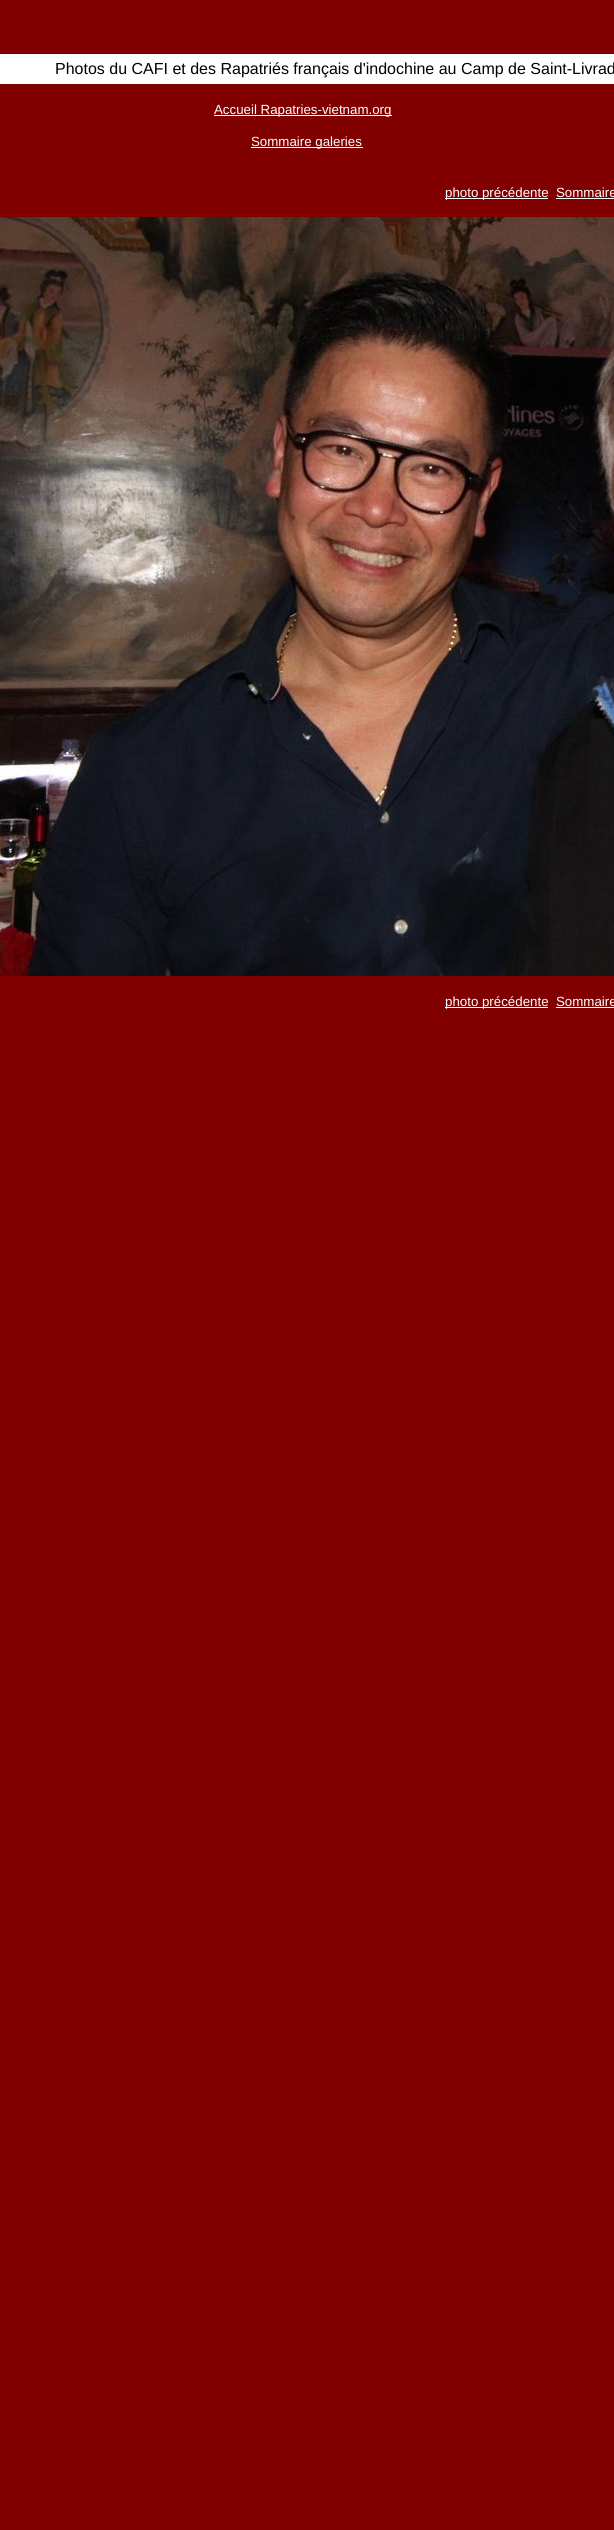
import math
import cairo

surface = cairo.ImageSurface(cairo.FORMAT_RGB24, 614, 2530)
ctx = cairo.Context(surface)
options = cairo.FontOptions()
options.set_hint_metrics(cairo.HINT_METRICS_OFF)
options.set_hint_style(cairo.HINT_STYLE_NONE)
ctx.set_font_options(options)
ctx.set_miter_limit(4)


def set_color(code):
    ctx.set_source_rgb(*(v / 255 for v in bytes.fromhex(code[-6:])))


def draw_text(x, y, s, family, size, color, bold=False, italic=False):
    ctx.select_font_face(family, cairo.FONT_SLANT_ITALIC if italic else cairo.FONT_SLANT_NORMAL, cairo.FONT_WEIGHT_BOLD if bold else cairo.FONT_WEIGHT_NORMAL)
    ctx.set_font_size(size)
    set_color(color)
    ctx.move_to(x, y)
    ctx.show_text(s)


def fill_rect(x, y, w, h, color):
    set_color(color)
    ctx.rectangle(x, y, w, h)
    ctx.fill()


def draw_image(path, x, y, w, h):
    ctx.save()
    ctx.set_source_surface(cairo.ImageSurface.create_from_png(path), x, y)
    ctx.rectangle(x, y, w, h)
    ctx.fill()
    ctx.restore()


set_color("#800000")
ctx.paint()
fill_rect(0, 54, 614, 30, "#ffffff")
draw_text(55, 74, "Photos du CAFI et des Rapatriés français d'indochine au Camp de Saint-Livrad", "Liberation Sans", 16, "#000000")
fill_rect(214, 115, 178, 1, "#ffffff")
draw_text(214, 114, "Accueil Rapatries-vietnam.org", "Liberation Sans", 13.3, "#ffffff")
fill_rect(251, 147, 112, 1, "#ffffff")
draw_text(251, 146, "Sommaire galeries", "Liberation Sans", 13.3, "#ffffff")
fill_rect(445, 198, 103, 1, "#ffffff")
draw_text(445, 197, "photo précédente", "Liberation Sans", 13.3, "#ffffff")
draw_text(556, 197, "Sommaire", "Liberation Sans", 13.3, "#ffffff")
fill_rect(556, 198, 58, 1, "#ffffff")
draw_image("assets/img1.png", 0, 217, 614, 759)
fill_rect(445, 1007, 103, 1, "#ffffff")
draw_text(445, 1006, "photo précédente", "Liberation Sans", 13.3, "#ffffff")
draw_text(556, 1006, "Sommaire", "Liberation Sans", 13.3, "#ffffff")
fill_rect(556, 1007, 58, 1, "#ffffff")
surface.write_to_png("output.png")
